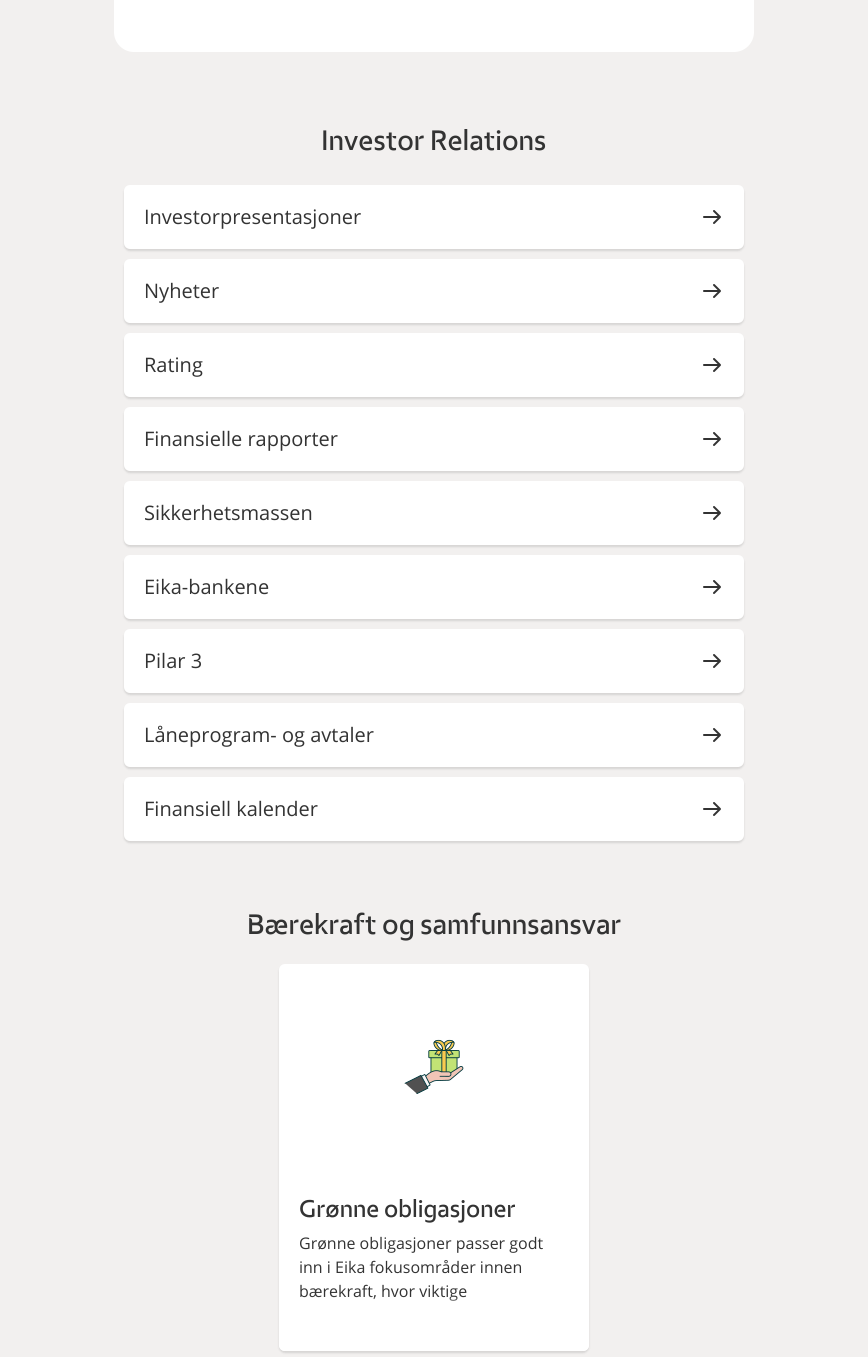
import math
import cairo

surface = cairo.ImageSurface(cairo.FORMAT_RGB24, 868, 1357)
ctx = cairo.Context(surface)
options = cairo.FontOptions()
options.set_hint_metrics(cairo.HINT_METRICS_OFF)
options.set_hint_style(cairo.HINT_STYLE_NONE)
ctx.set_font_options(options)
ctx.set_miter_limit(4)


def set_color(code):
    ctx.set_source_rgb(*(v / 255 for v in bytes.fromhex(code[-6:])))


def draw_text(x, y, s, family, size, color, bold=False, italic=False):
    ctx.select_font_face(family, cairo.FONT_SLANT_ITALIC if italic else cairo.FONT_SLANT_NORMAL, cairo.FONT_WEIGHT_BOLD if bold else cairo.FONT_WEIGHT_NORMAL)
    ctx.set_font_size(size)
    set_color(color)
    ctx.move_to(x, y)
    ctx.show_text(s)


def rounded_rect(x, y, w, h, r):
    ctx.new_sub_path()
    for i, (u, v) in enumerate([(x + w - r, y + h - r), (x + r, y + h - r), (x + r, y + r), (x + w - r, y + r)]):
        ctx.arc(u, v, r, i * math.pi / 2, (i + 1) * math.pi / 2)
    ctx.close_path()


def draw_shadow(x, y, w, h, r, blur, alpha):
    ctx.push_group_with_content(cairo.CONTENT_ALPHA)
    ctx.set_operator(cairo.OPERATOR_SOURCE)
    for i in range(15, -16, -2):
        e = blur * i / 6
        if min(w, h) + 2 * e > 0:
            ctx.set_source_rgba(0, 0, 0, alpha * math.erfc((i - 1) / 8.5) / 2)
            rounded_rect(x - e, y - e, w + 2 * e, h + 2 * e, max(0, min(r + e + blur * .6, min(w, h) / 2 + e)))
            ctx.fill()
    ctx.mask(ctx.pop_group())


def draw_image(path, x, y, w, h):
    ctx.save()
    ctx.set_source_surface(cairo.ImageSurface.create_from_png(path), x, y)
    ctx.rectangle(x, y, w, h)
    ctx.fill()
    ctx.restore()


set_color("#f2f0ef")
ctx.paint()
set_color("#ffffff")
rounded_rect(114, -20, 640, 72, 20)
ctx.fill()
draw_text(321, 150, "Investor Relations", "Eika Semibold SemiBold", 28, "#333333")
set_color("#333333")
draw_shadow(124, 187, 620, 64, 6, 1, 0.15)
set_color("#ffffff")
rounded_rect(124, 185, 620, 64, 6)
ctx.fill()
draw_text(144, 224, "Investorpresentasjoner", "Open Sans", 20, "#333333")
draw_image("assets/img1.png", 703, 210, 18, 14)
set_color("#333333")
draw_shadow(124, 261, 620, 64, 6, 1, 0.15)
set_color("#ffffff")
rounded_rect(124, 259, 620, 64, 6)
ctx.fill()
draw_text(144, 298, "Nyheter", "Open Sans", 20, "#333333")
draw_image("assets/img1.png", 703, 284, 18, 14)
set_color("#333333")
draw_shadow(124, 335, 620, 64, 6, 1, 0.15)
set_color("#ffffff")
rounded_rect(124, 333, 620, 64, 6)
ctx.fill()
draw_text(144, 372, "Rating", "Open Sans", 20, "#333333")
draw_image("assets/img1.png", 703, 358, 18, 14)
set_color("#333333")
draw_shadow(124, 409, 620, 64, 6, 1, 0.15)
set_color("#ffffff")
rounded_rect(124, 407, 620, 64, 6)
ctx.fill()
draw_text(144, 446, "Finansielle rapporter", "Open Sans", 20, "#333333")
draw_image("assets/img1.png", 703, 432, 18, 14)
set_color("#333333")
draw_shadow(124, 483, 620, 64, 6, 1, 0.15)
set_color("#ffffff")
rounded_rect(124, 481, 620, 64, 6)
ctx.fill()
draw_text(144, 520, "Sikkerhetsmassen", "Open Sans", 20, "#333333")
draw_image("assets/img1.png", 703, 506, 18, 14)
set_color("#333333")
draw_shadow(124, 557, 620, 64, 6, 1, 0.15)
set_color("#ffffff")
rounded_rect(124, 555, 620, 64, 6)
ctx.fill()
draw_text(144, 594, "Eika-bankene", "Open Sans", 20, "#333333")
draw_image("assets/img1.png", 703, 580, 18, 14)
set_color("#333333")
draw_shadow(124, 631, 620, 64, 6, 1, 0.15)
set_color("#ffffff")
rounded_rect(124, 629, 620, 64, 6)
ctx.fill()
draw_text(144, 668, "Pilar 3", "Open Sans", 20, "#333333")
draw_image("assets/img1.png", 703, 654, 18, 14)
set_color("#333333")
draw_shadow(124, 705, 620, 64, 6, 1, 0.15)
set_color("#ffffff")
rounded_rect(124, 703, 620, 64, 6)
ctx.fill()
draw_text(144, 742, "Låneprogram- og avtaler", "Open Sans", 20, "#333333")
draw_image("assets/img1.png", 703, 728, 18, 14)
set_color("#333333")
draw_shadow(124, 779, 620, 64, 6, 1, 0.15)
set_color("#ffffff")
rounded_rect(124, 777, 620, 64, 6)
ctx.fill()
draw_text(144, 816, "Finansiell kalender", "Open Sans", 20, "#333333")
draw_image("assets/img1.png", 703, 802, 18, 14)
draw_text(247, 934, "Bærekraft og samfunnsansvar", "Eika Semibold SemiBold", 28, "#333333")
set_color("#333333")
draw_shadow(279, 966, 310, 387, 6, 1, 0.15)
set_color("#ffffff")
rounded_rect(279, 964, 310, 387, 6)
ctx.fill()
draw_image("assets/img2.png", 404, 1039, 60, 55)
draw_text(299, 1217, "Grønne obligasjoner", "Eika Semibold SemiBold", 24, "#333333")
draw_text(299, 1249, "Grønne obligasjoner passer godt", "Open Sans", 16, "#333333")
draw_text(299, 1273, "inn i Eika fokusområder innen", "Open Sans", 16, "#333333")
draw_text(299, 1297, "bærekraft, hvor viktige", "Open Sans", 16, "#333333")
gradient = cairo.LinearGradient(434, 1296, 434, 1351)
gradient.add_color_stop_rgba(0, 1, 1, 1, 0)
gradient.add_color_stop_rgba(0.15, 1, 1, 1, 0.5)
gradient.add_color_stop_rgba(0.55, 1, 1, 1, 1)
ctx.set_source(gradient)
ctx.new_path()
ctx.move_to(279, 1296)
ctx.line_to(589, 1296)
ctx.line_to(589, 1345)
ctx.curve_to(589, 1348.5, 586.5, 1351, 583, 1351)
ctx.line_to(285, 1351)
ctx.curve_to(281.5, 1351, 279, 1348.5, 279, 1345)
ctx.close_path()
ctx.fill()
surface.write_to_png("output.png")
